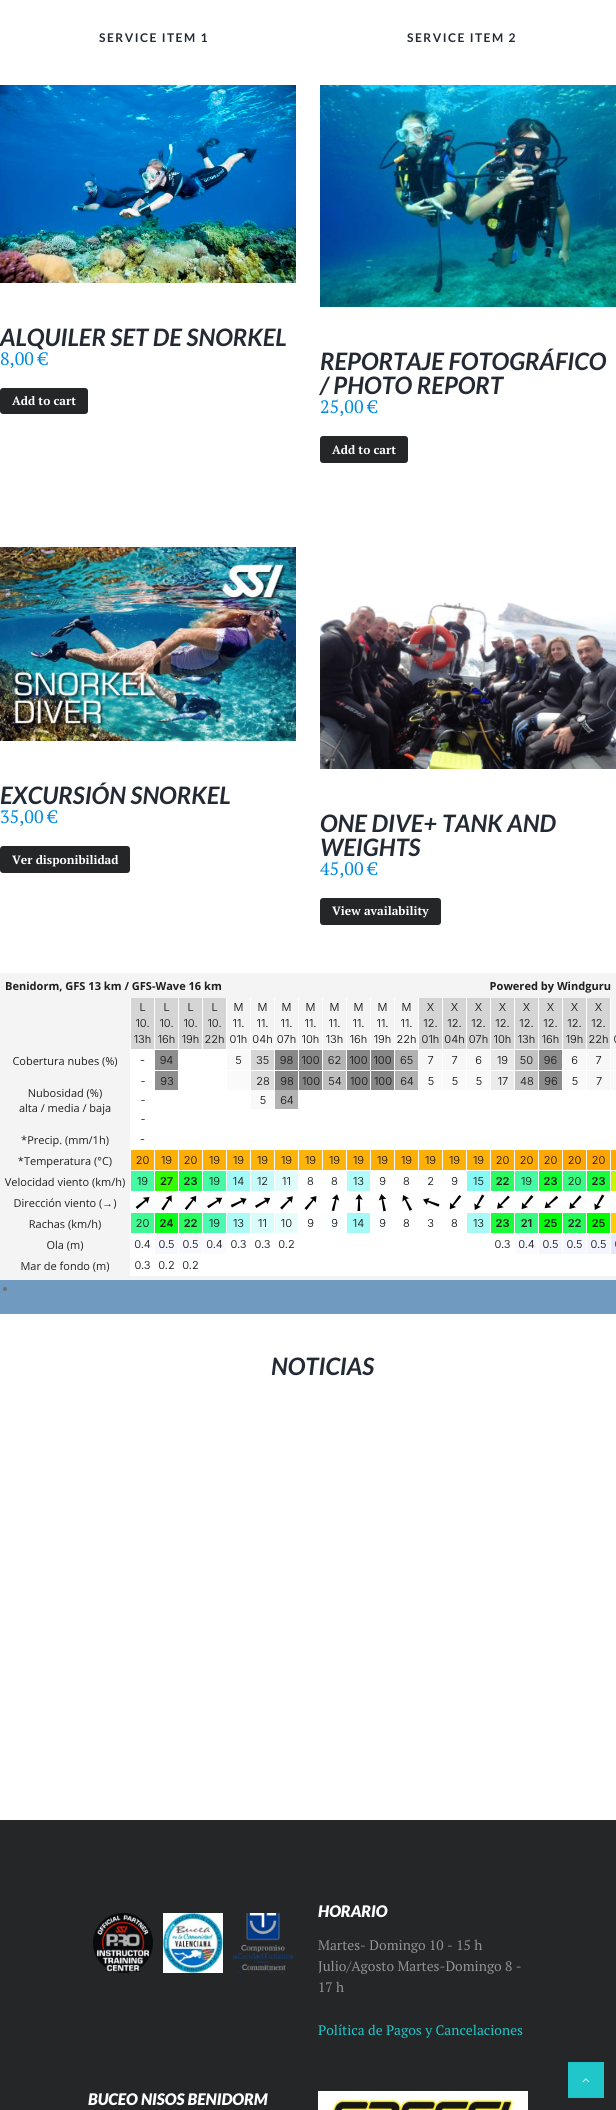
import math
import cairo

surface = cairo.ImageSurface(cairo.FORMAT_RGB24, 616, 2110)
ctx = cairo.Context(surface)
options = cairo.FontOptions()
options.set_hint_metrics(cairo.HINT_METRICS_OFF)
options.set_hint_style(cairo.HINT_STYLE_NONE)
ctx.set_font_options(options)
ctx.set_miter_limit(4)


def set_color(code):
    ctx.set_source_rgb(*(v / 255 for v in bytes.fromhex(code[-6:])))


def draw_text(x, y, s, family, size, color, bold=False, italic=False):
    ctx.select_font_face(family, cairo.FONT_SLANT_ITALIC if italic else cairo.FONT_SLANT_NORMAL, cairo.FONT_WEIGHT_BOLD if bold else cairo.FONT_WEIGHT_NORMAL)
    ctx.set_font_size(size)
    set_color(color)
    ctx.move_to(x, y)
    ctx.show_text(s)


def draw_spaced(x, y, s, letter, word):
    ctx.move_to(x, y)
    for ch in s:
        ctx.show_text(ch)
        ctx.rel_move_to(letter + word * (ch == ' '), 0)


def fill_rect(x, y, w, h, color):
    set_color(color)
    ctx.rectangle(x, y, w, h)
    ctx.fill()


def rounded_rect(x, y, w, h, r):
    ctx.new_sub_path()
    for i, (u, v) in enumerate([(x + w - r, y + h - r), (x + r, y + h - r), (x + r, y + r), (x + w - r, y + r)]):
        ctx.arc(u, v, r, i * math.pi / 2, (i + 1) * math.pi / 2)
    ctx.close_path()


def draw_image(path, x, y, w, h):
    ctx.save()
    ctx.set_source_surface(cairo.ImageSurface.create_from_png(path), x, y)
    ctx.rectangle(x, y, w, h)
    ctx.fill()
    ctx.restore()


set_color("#ffffff")
ctx.paint()
ctx.select_font_face("Lato", cairo.FONT_SLANT_NORMAL, cairo.FONT_WEIGHT_BOLD)
ctx.set_font_size(12)
set_color("#232a34")
draw_spaced(99, 42, "SERVICE ITEM 1", 1.5, 0)
draw_spaced(407, 42, "SERVICE ITEM 2", 1.5, 0)
draw_image("assets/img1.png", 0, 85, 296, 198)
draw_text(0, 346, "ALQUILER SET DE SNORKEL", "Lato", 24, "#232a34", bold=True, italic=True)
draw_text(0, 365, "8,00 €", "PT Serif", 18, "#008ae2")
set_color("#252627")
rounded_rect(0, 388, 88, 26, 3)
ctx.fill()
draw_text(12, 405, "Add to cart", "PT Serif", 12, "#ffffff", bold=True)
draw_image("assets/img2.png", 320, 85, 296, 222)
draw_text(320, 370, "REPORTAJE FOTOGRÁFICO", "Lato", 24, "#232a34", bold=True, italic=True)
draw_text(320, 394, "/ PHOTO REPORT", "Lato", 24, "#232a34", bold=True, italic=True)
draw_text(320, 413, "25,00 €", "PT Serif", 18, "#008ae2")
set_color("#252627")
rounded_rect(320, 436, 88, 27, 3)
ctx.fill()
draw_text(332, 454, "Add to cart", "PT Serif", 12, "#ffffff", bold=True)
draw_image("assets/img3.png", 0, 547, 296, 194)
draw_text(0, 804, "EXCURSIÓN SNORKEL", "Lato", 24, "#232a34", bold=True, italic=True)
draw_text(0, 823, "35,00 €", "PT Serif", 18, "#008ae2")
set_color("#252627")
rounded_rect(0, 846, 130, 27, 3)
ctx.fill()
draw_text(12, 864, "Ver disponibilidad", "PT Serif", 12, "#ffffff", bold=True)
draw_image("assets/img4.png", 320, 602, 296, 167)
draw_text(320, 832, "ONE DIVE+ TANK AND", "Lato", 24, "#232a34", bold=True, italic=True)
draw_text(320, 856, "WEIGHTS", "Lato", 24, "#232a34", bold=True, italic=True)
draw_text(320, 875, "45,00 €", "PT Serif", 18, "#008ae2")
set_color("#252627")
rounded_rect(320, 898, 121, 27, 3)
ctx.fill()
draw_text(332, 915, "View availability", "PT Serif", 12, "#ffffff", bold=True)
fill_rect(0, 1280, 616, 34, "#709abf")
draw_image("assets/img5.png", 0, 973, 616, 307)
set_color("#6f6f6f")
ctx.arc(5, 1289, 2, 0, 2 * math.pi)
ctx.fill()
draw_text(271, 1375, "NOTICIAS", "Lato", 24, "#232a34", bold=True, italic=True)
fill_rect(0, 1820, 616, 290, "#252627")
draw_image("assets/img6.png", 93, 1913, 60, 60)
draw_image("assets/img7.png", 163, 1913, 60, 60)
draw_image("assets/img8.png", 233, 1913, 60, 60)
draw_text(318, 1917, "HORARIO", "Lato Black", 16, "#ffffff", italic=True)
draw_text(318, 1950, "Martes- Domingo 10 - 15 h", "PT Serif", 13.75, "#929393")
draw_text(318, 1971, "Julio/Agosto Martes-Domingo 8 -", "PT Serif", 13.75, "#929393")
draw_text(318, 1992, "17 h", "PT Serif", 13.75, "#929393")
draw_text(318, 2035, "Política de Pagos y Cancelaciones", "PT Serif", 13.75, "#20c7ca")
draw_text(88, 2105, "BUCEO NISOS BENIDORM", "Lato Black", 16, "#ffffff", italic=True)
draw_image("assets/img9.png", 318, 2091, 210, 19)
fill_rect(568, 2062, 36, 36, "#20c7ca")
draw_image("assets/img10.png", 582, 2078, 8, 5)
surface.write_to_png("output.png")
